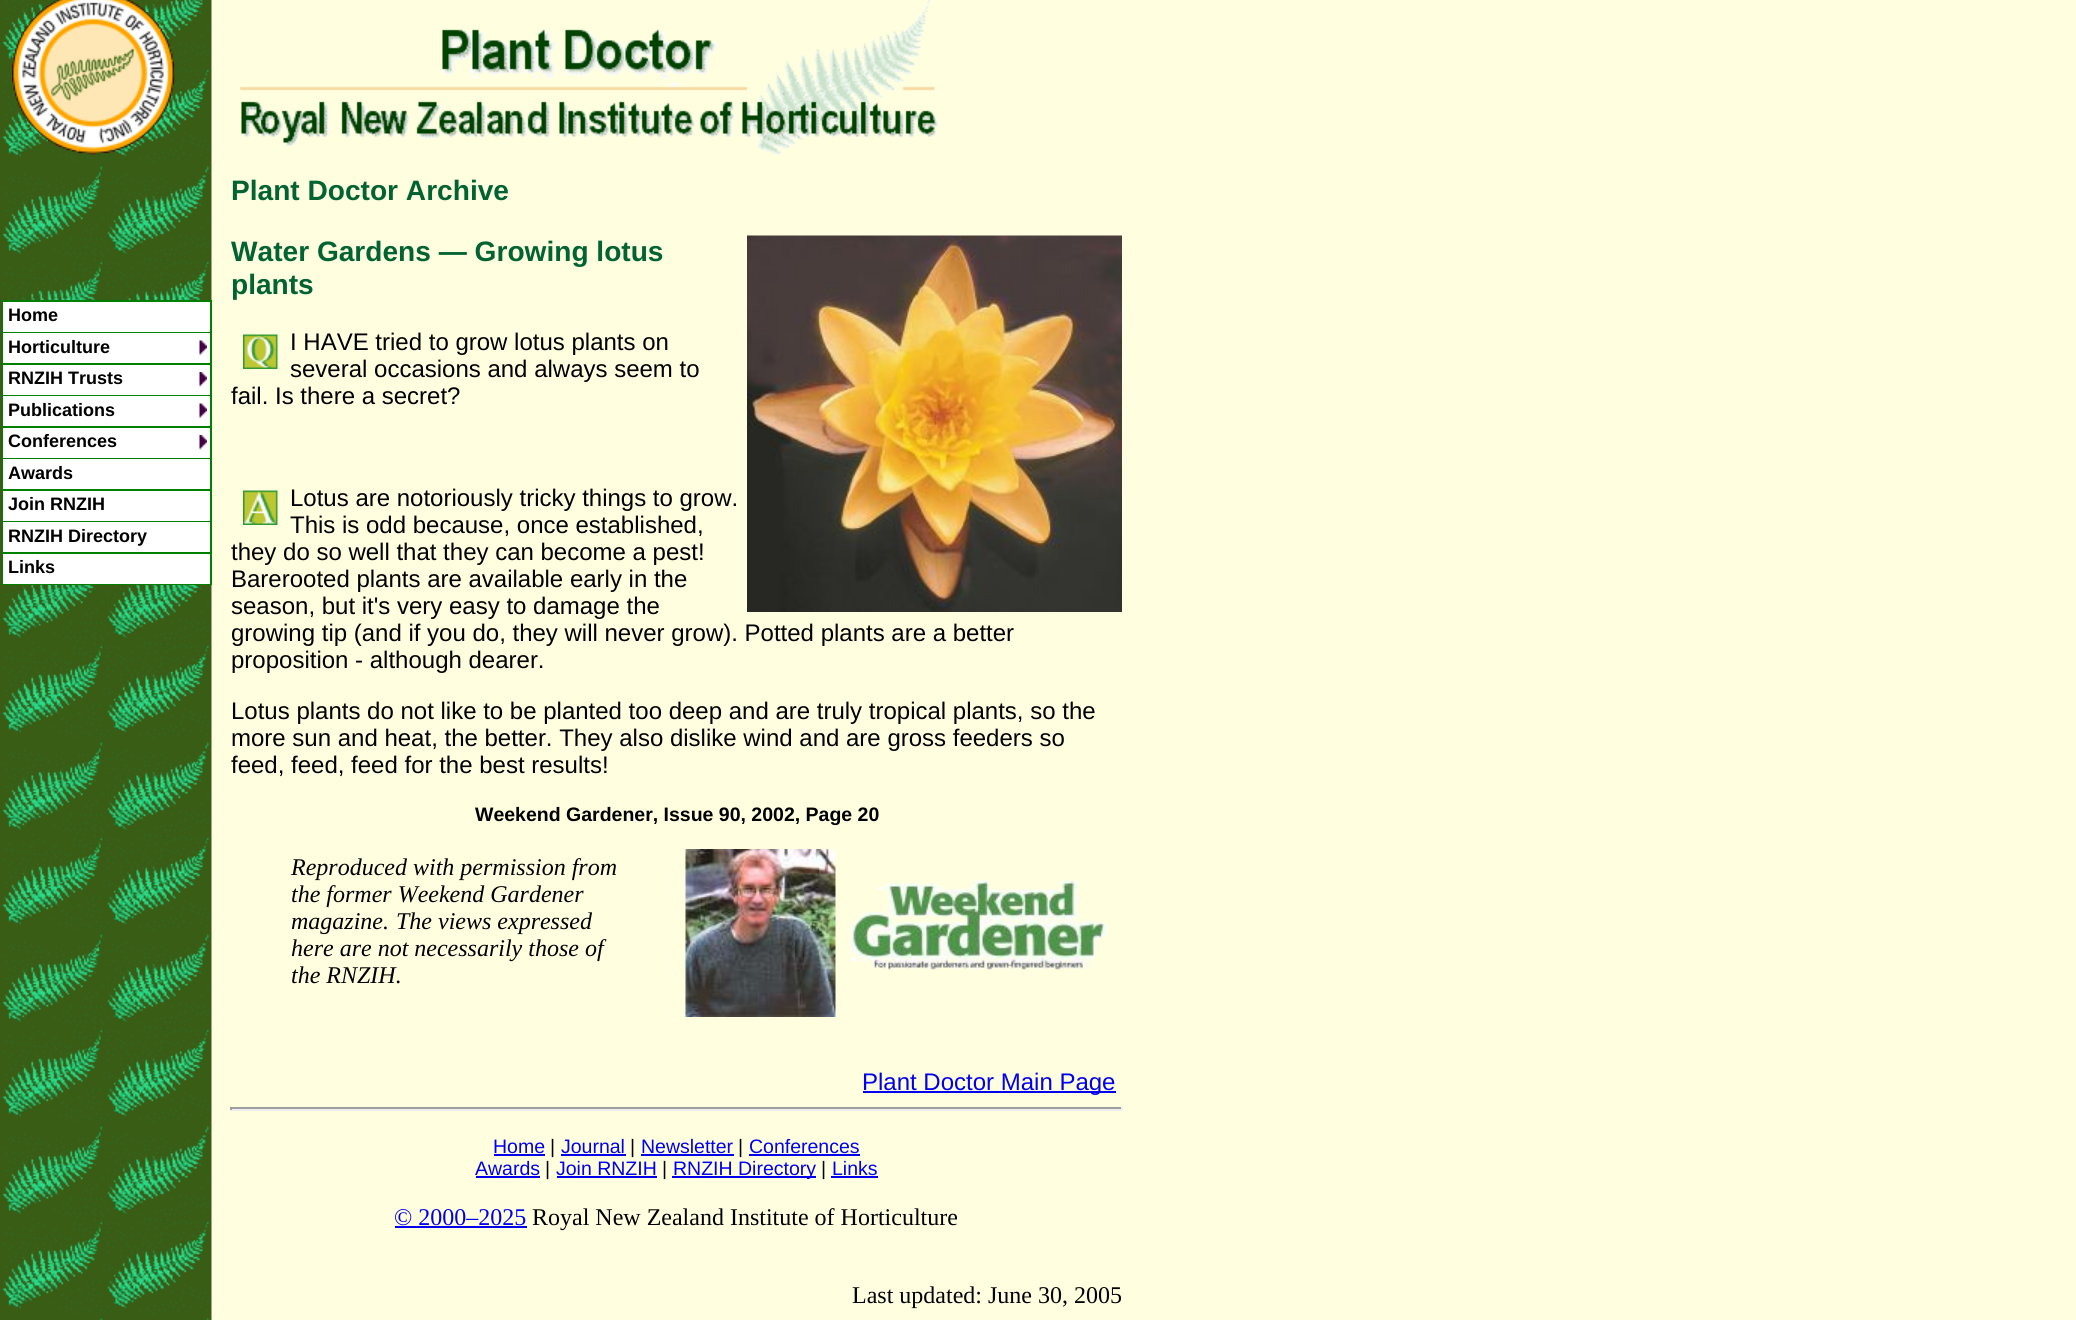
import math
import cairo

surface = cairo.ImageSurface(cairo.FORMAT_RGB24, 2076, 1320)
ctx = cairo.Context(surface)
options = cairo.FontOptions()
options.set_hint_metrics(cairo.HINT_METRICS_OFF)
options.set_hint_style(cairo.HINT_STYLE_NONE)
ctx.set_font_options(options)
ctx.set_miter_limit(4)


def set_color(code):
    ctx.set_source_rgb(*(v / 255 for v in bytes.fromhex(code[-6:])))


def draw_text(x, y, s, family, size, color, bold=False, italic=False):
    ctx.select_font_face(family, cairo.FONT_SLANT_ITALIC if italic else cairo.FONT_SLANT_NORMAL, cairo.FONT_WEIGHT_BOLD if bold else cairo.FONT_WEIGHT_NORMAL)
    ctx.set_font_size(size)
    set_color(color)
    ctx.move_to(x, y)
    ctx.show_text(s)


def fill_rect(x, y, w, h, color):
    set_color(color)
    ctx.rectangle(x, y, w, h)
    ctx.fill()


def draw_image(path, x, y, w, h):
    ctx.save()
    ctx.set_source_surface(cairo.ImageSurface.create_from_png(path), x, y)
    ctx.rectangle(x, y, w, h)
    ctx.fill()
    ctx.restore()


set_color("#ffffe0")
ctx.paint()
draw_image("assets/img1.png", 0, 0, 212, 1320)
fill_rect(2, 300, 210, 285, "#008000")
fill_rect(3, 302, 207, 30, "#ffffff")
draw_text(8, 321, "Home", "Liberation Sans", 18, "#000000", bold=True)
fill_rect(3, 333, 207, 30, "#ffffff")
draw_text(8, 353, "Horticulture", "Liberation Sans", 18, "#000000", bold=True)
draw_image("assets/img2.png", 199, 340, 8, 16)
fill_rect(3, 365, 207, 30, "#ffffff")
draw_text(8, 384, "RNZIH Trusts", "Liberation Sans", 18, "#000000", bold=True)
draw_image("assets/img3.png", 199, 372, 8, 15)
fill_rect(3, 396, 207, 30, "#ffffff")
draw_text(8, 416, "Publications", "Liberation Sans", 18, "#000000", bold=True)
draw_image("assets/img2.png", 199, 403, 8, 16)
fill_rect(3, 428, 207, 30, "#ffffff")
draw_text(8, 447, "Conferences", "Liberation Sans", 18, "#000000", bold=True)
draw_image("assets/img3.png", 199, 435, 8, 15)
fill_rect(3, 459, 207, 30, "#ffffff")
draw_text(8, 479, "Awards", "Liberation Sans", 18, "#000000", bold=True)
fill_rect(3, 491, 207, 30, "#ffffff")
draw_text(8, 510, "Join RNZIH", "Liberation Sans", 18, "#000000", bold=True)
fill_rect(3, 522, 207, 30, "#ffffff")
draw_text(8, 542, "RNZIH Directory", "Liberation Sans", 18, "#000000", bold=True)
fill_rect(3, 554, 207, 30, "#ffffff")
draw_text(8, 573, "Links", "Liberation Sans", 18, "#000000", bold=True)
draw_image("assets/img4.png", 12, 0, 163, 155)
draw_image("assets/img5.png", 239, 0, 699, 155)
draw_text(231, 200, "Plant Doctor Archive", "Liberation Sans", 28.1, "#006331", bold=True)
draw_text(231, 261, "Water Gardens — Growing lotus", "Liberation Sans", 28.1, "#006331", bold=True)
draw_image("assets/img6.png", 747, 235, 375, 377)
draw_text(231, 294, "plants", "Liberation Sans", 28.1, "#006331", bold=True)
draw_image("assets/img7.png", 243, 334, 35, 35)
draw_text(290, 350, "I HAVE tried to grow lotus plants on", "Liberation Sans", 24, "#000000")
draw_text(290, 377, "several occasions and always seem to", "Liberation Sans", 24, "#000000")
draw_text(231, 404, "fail. Is there a secret?", "Liberation Sans", 24, "#000000")
draw_image("assets/img8.png", 243, 490, 35, 35)
draw_text(290, 506, "Lotus are notoriously tricky things to grow.", "Liberation Sans", 24, "#000000")
draw_text(290, 533, "This is odd because, once established,", "Liberation Sans", 24, "#000000")
draw_text(231, 560, "they do so well that they can become a pest!", "Liberation Sans", 24, "#000000")
draw_text(231, 587, "Barerooted plants are available early in the", "Liberation Sans", 24, "#000000")
draw_text(231, 614, "season, but it's very easy to damage the", "Liberation Sans", 24, "#000000")
draw_text(231, 641, "growing tip (and if you do, they will never grow). Potted plants are a better", "Liberation Sans", 24, "#000000")
draw_text(231, 668, "proposition - although dearer.", "Liberation Sans", 24, "#000000")
draw_text(231, 719, "Lotus plants do not like to be planted too deep and are truly tropical plants, so the", "Liberation Sans", 24, "#000000")
draw_text(231, 746, "more sun and heat, the better. They also dislike wind and are gross feeders so", "Liberation Sans", 24, "#000000")
draw_text(231, 773, "feed, feed, feed for the best results!", "Liberation Sans", 24, "#000000")
draw_text(475, 821, "Weekend Gardener, Issue 90, 2002, Page 20", "Liberation Sans", 19.5, "#000000", bold=True)
draw_text(291, 875, "Reproduced with permission from", "Liberation Serif", 24, "#000000", italic=True)
draw_text(291, 902, "the former Weekend Gardener", "Liberation Serif", 24, "#000000", italic=True)
draw_text(291, 929, "magazine.", "Liberation Serif", 24, "#000000", italic=True)
draw_text(396, 929, "The views expressed", "Liberation Serif", 24, "#000000", italic=True)
draw_text(291, 956, "here are not necessarily those of", "Liberation Serif", 24, "#000000", italic=True)
draw_text(291, 983, "the RNZIH.", "Liberation Serif", 24, "#000000", italic=True)
draw_image("assets/img9.png", 685, 849, 151, 168)
draw_image("assets/img10.png", 850, 880, 257, 94)
fill_rect(863, 1091, 253, 2, "#0000ee")
draw_text(862, 1090, "Plant Doctor Main Page", "Liberation Sans", 24, "#0000ee")
fill_rect(230, 1107, 892, 2, "#9f9f9f")
fill_rect(1121, 1107, 2, 3, "#eeeeee")
fill_rect(230, 1109, 892, 2, "#eeeeee")
fill_rect(230, 1107, 2, 3, "#9f9f9f")
draw_text(493, 1153, "Home", "Liberation Sans", 19.5, "#0000ee")
fill_rect(494, 1154, 51, 2, "#0000ee")
draw_text(550, 1153, "|", "Liberation Sans", 19.5, "#000000")
draw_text(561, 1153, "Journal", "Liberation Sans", 19.5, "#0000ee")
fill_rect(561, 1154, 65, 2, "#0000ee")
draw_text(630, 1153, "|", "Liberation Sans", 19.5, "#000000")
draw_text(641, 1153, "Newsletter", "Liberation Sans", 19.5, "#0000ee")
fill_rect(641, 1154, 93, 2, "#0000ee")
draw_text(738, 1153, "|", "Liberation Sans", 19.5, "#000000")
draw_text(749, 1153, "Conferences", "Liberation Sans", 19.5, "#0000ee")
fill_rect(749, 1154, 111, 2, "#0000ee")
draw_text(475, 1175, "Awards", "Liberation Sans", 19.5, "#0000ee")
fill_rect(476, 1176, 64, 2, "#0000ee")
draw_text(545, 1175, "|", "Liberation Sans", 19.5, "#000000")
draw_text(556, 1175, "Join RNZIH", "Liberation Sans", 19.5, "#0000ee")
fill_rect(557, 1176, 100, 2, "#0000ee")
draw_text(662, 1175, "|", "Liberation Sans", 19.5, "#000000")
fill_rect(672, 1176, 144, 2, "#0000ee")
draw_text(673, 1175, "RNZIH Directory", "Liberation Sans", 19.5, "#0000ee")
draw_text(821, 1175, "|", "Liberation Sans", 19.5, "#000000")
draw_text(832, 1175, "Links", "Liberation Sans", 19.5, "#0000ee")
fill_rect(831, 1176, 47, 2, "#0000ee")
draw_text(394, 1225, "© 2000–2025", "Liberation Serif", 24, "#0000ee")
fill_rect(395, 1226, 132, 2, "#0000ee")
draw_text(532, 1225, "Royal New Zealand Institute of Horticulture", "Liberation Serif", 24, "#000000")
draw_text(852, 1303, "Last updated: June 30, 2005", "Liberation Serif", 24, "#000000")
surface.write_to_png("output.png")
